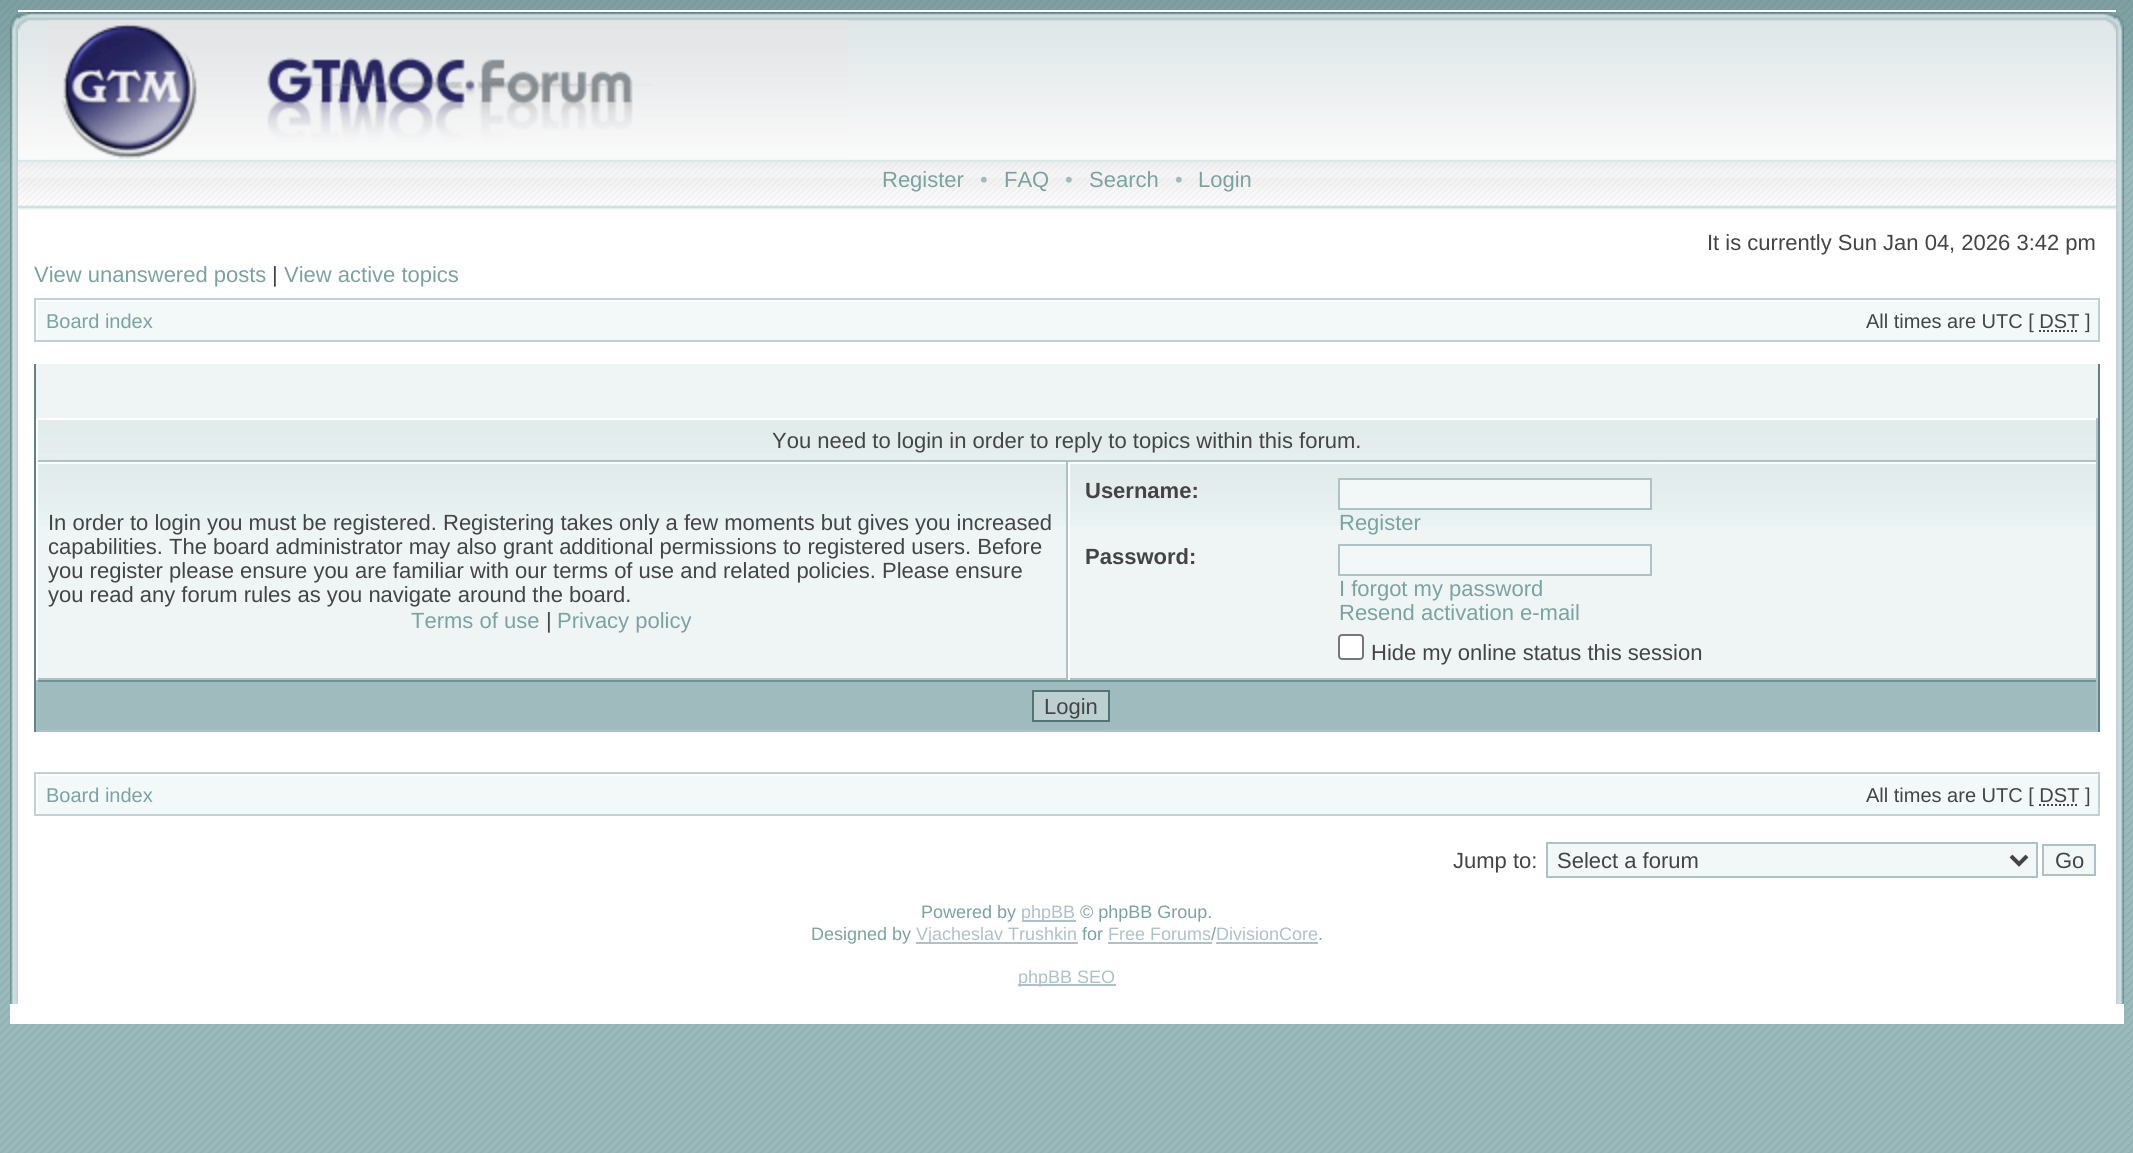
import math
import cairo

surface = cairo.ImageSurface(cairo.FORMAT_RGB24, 2133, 1153)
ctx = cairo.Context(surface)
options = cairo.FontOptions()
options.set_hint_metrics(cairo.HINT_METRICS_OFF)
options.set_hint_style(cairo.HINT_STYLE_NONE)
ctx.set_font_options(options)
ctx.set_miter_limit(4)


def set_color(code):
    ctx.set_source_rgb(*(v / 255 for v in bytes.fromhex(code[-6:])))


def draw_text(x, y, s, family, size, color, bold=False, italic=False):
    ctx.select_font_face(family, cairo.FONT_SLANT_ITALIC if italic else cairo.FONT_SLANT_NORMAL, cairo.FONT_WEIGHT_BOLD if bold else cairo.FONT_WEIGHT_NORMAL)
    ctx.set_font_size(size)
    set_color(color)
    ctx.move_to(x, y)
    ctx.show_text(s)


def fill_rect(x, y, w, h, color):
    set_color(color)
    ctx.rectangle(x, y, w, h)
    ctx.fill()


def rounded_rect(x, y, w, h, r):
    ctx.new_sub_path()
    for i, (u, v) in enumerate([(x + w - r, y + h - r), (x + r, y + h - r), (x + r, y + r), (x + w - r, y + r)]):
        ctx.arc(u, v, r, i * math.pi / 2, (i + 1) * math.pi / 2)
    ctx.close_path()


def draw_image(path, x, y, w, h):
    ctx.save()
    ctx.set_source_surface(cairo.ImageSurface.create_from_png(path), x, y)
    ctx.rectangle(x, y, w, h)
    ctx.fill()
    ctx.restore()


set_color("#ffffff")
ctx.paint()
draw_image("assets/img1.png", 0, 162, 2133, 991)
draw_image("assets/img2.png", 0, 0, 2133, 162)
fill_rect(10, 10, 2114, 1014, "#ffffff")
draw_image("assets/img3.png", 10, 164, 8, 46)
draw_image("assets/img4.png", 10, 10, 8, 154)
draw_image("assets/img5.png", 18, 12, 2098, 148)
draw_image("assets/img6.png", 18, 12, 13, 19)
draw_image("assets/img7.png", 2103, 12, 13, 20)
draw_image("assets/img8.png", 48, 20, 800, 140)
draw_image("assets/img9.png", 18, 160, 2098, 50)
draw_text(882, 187, "Register", "Liberation Sans", 22, "#7ba2a2")
draw_text(980, 187, "•", "Liberation Sans", 22, "#9fbcbc")
draw_text(1004, 187, "FAQ", "Liberation Sans", 22, "#7ba2a2")
draw_text(1065, 187, "•", "Liberation Sans", 22, "#9fbcbc")
draw_text(1089, 187, "Search", "Liberation Sans", 22, "#7ba2a2")
draw_text(1175, 187, "•", "Liberation Sans", 22, "#9fbcbc")
draw_text(1198, 187, "Login", "Liberation Sans", 22, "#7ba2a2")
draw_image("assets/img10.png", 2116, 164, 8, 46)
draw_image("assets/img11.png", 2116, 10, 8, 154)
draw_image("assets/img12.png", 10, 210, 8, 794)
draw_text(1707, 250, "It is currently Sun Jan 04, 2026 3:42 pm", "Liberation Sans", 22, "#444444")
draw_text(34, 282, "View unanswered posts", "Liberation Sans", 22, "#7ba2a2")
draw_text(272, 282, "|", "Liberation Sans", 22, "#444444")
draw_text(284, 282, "View active topics", "Liberation Sans", 22, "#7ba2a2")
ctx.rectangle(35, 299, 2064, 42)
set_color("#c0d1d5")
ctx.stroke()
fill_rect(38, 302, 2060, 38, "#f3f8f9")
draw_text(46, 328, "Board index", "Liberation Sans", 20, "#7ba2a2")
draw_text(1866, 328, "All times are UTC [ DST ]", "Liberation Sans", 20, "#444444")
ctx.new_path()
ctx.move_to(2039, 331)
ctx.line_to(2079, 331)
ctx.set_dash([2, 2])
ctx.stroke()
fill_rect(36, 364, 2062, 54, "#eff5f4")
fill_rect(2098, 364, 2, 368, "#618387")
fill_rect(34, 364, 2, 368, "#618387")
draw_image("assets/img13.png", 38, 420, 2058, 40)
fill_rect(2096, 418, 2, 262, "#acc2c7")
fill_rect(36, 460, 2062, 2, "#acc2c7")
fill_rect(36, 460, 2, 2, "#ffffff")
draw_text(772, 448, "You need to login in order to reply to topics within this forum.", "Liberation Sans", 22, "#444444")
fill_rect(38, 526, 1028, 152, "#eff5f4")
draw_image("assets/img14.png", 38, 464, 1028, 62)
fill_rect(1066, 462, 2, 218, "#acc2c7")
fill_rect(36, 678, 2062, 2, "#acc2c7")
fill_rect(36, 678, 2, 2, "#ffffff")
draw_text(48, 530, "In order to login you must be registered. Registering takes only a few moments but gives you increased", "Liberation Sans", 22, "#444444")
draw_text(48, 554, "capabilities. The board administrator may also grant additional permissions to registered users. Before", "Liberation Sans", 22, "#444444")
draw_text(48, 578, "you register please ensure you are familiar with our terms of use and related policies. Please ensure", "Liberation Sans", 22, "#444444")
draw_text(48, 602, "you read any forum rules as you navigate around the board.", "Liberation Sans", 22, "#444444")
draw_text(411, 628, "Terms of use", "Liberation Sans", 22, "#7ba2a2")
draw_text(546, 628, "|", "Liberation Sans", 22, "#444444")
draw_text(557, 628, "Privacy policy", "Liberation Sans", 22, "#7ba2a2")
fill_rect(1070, 526, 1026, 152, "#eff5f4")
draw_image("assets/img15.png", 1070, 464, 1026, 62)
fill_rect(1068, 678, 2, 2, "#ffffff")
draw_text(1085, 498, "Username:", "Liberation Sans", 22, "#444444", bold=True)
set_color("#f2f7f8")
ctx.rectangle(1339, 479, 312, 30)
ctx.fill_preserve()
set_color("#acc2c7")
ctx.set_dash([])
ctx.stroke()
draw_text(1339, 530, "Register", "Liberation Sans", 22, "#7ba2a2")
draw_text(1085, 564, "Password:", "Liberation Sans", 22, "#444444", bold=True)
set_color("#f2f7f8")
ctx.rectangle(1339, 545, 312, 30)
ctx.fill_preserve()
set_color("#acc2c7")
ctx.stroke()
draw_text(1339, 596, "I forgot my password", "Liberation Sans", 22, "#7ba2a2")
draw_text(1339, 620, "Resend activation e-mail", "Liberation Sans", 22, "#7ba2a2")
set_color("#ffffff")
rounded_rect(1339, 635, 24, 24, 3)
ctx.fill_preserve()
set_color("#767676")
ctx.stroke()
draw_text(1371, 660, "Hide my online status this session", "Liberation Sans", 22, "#444444")
fill_rect(38, 682, 2058, 48, "#a0bbbd")
fill_rect(36, 680, 2062, 2, "#6e9596")
fill_rect(2096, 680, 2, 52, "#acc2c7")
fill_rect(36, 730, 2062, 2, "#acc2c7")
fill_rect(36, 680, 2, 52, "#a3c1bf")
set_color("#bcd0d0")
ctx.rectangle(1033, 691, 76, 30)
ctx.fill_preserve()
set_color("#517474")
ctx.stroke()
draw_text(1044, 714, "Login", "Liberation Sans", 22, "#444444")
ctx.rectangle(35, 773, 2064, 42)
set_color("#c0d1d5")
ctx.stroke()
fill_rect(38, 776, 2060, 38, "#f3f8f9")
draw_text(46, 802, "Board index", "Liberation Sans", 20, "#7ba2a2")
draw_text(1866, 802, "All times are UTC [ DST ]", "Liberation Sans", 20, "#444444")
ctx.new_path()
ctx.move_to(2039, 805)
ctx.line_to(2079, 805)
ctx.set_dash([2, 2])
ctx.stroke()
draw_text(1453, 868, "Jump to:", "Liberation Sans", 22, "#444444")
set_color("#f2f7f8")
ctx.rectangle(1547, 843, 490, 34)
ctx.fill_preserve()
set_color("#acc2c7")
ctx.set_dash([])
ctx.stroke()
ctx.new_path()
ctx.move_to(2011, 856)
ctx.line_to(2019, 864)
ctx.line_to(2027, 856)
set_color("#444444")
ctx.set_line_width(4)
ctx.stroke()
draw_text(1557, 868, "Select a forum", "Liberation Sans", 22, "#444444")
set_color("#f2f7f8")
ctx.rectangle(2043, 845, 52, 30)
ctx.fill_preserve()
set_color("#acc2c7")
ctx.set_line_width(2)
ctx.stroke()
draw_text(2055, 868, "Go", "Liberation Sans", 22, "#444444")
draw_text(921, 918, "Powered by", "Liberation Sans", 18, "#7ba2a2")
fill_rect(1022, 920, 54, 2, "#acc2c7")
draw_text(1021, 918, "phpBB", "Liberation Sans", 18, "#acc2c7")
draw_text(1080, 918, "© phpBB Group.", "Liberation Sans", 18, "#7ba2a2")
draw_text(811, 940, "Designed by", "Liberation Sans", 18, "#7ba2a2")
fill_rect(916, 942, 162, 2, "#acc2c7")
draw_text(916, 940, "Vjacheslav Trushkin", "Liberation Sans", 18, "#acc2c7")
draw_text(1108, 940, "Free Forums DivisionCore", "Liberation Sans", 18, "#acc2c7")
fill_rect(1108, 942, 104, 2, "#acc2c7")
draw_text(1082, 940, "for", "Liberation Sans", 18, "#7ba2a2")
draw_text(1211, 940, "/", "Liberation Sans", 18, "#7ba2a2")
draw_text(1318, 940, ".", "Liberation Sans", 18, "#7ba2a2")
fill_rect(1216, 942, 102, 2, "#acc2c7")
fill_rect(1018, 984, 98, 2, "#acc2c7")
draw_text(1018, 983, "phpBB SEO", "Liberation Sans", 18, "#acc2c7")
draw_image("assets/img16.png", 2116, 210, 8, 794)
surface.write_to_png("output.png")
